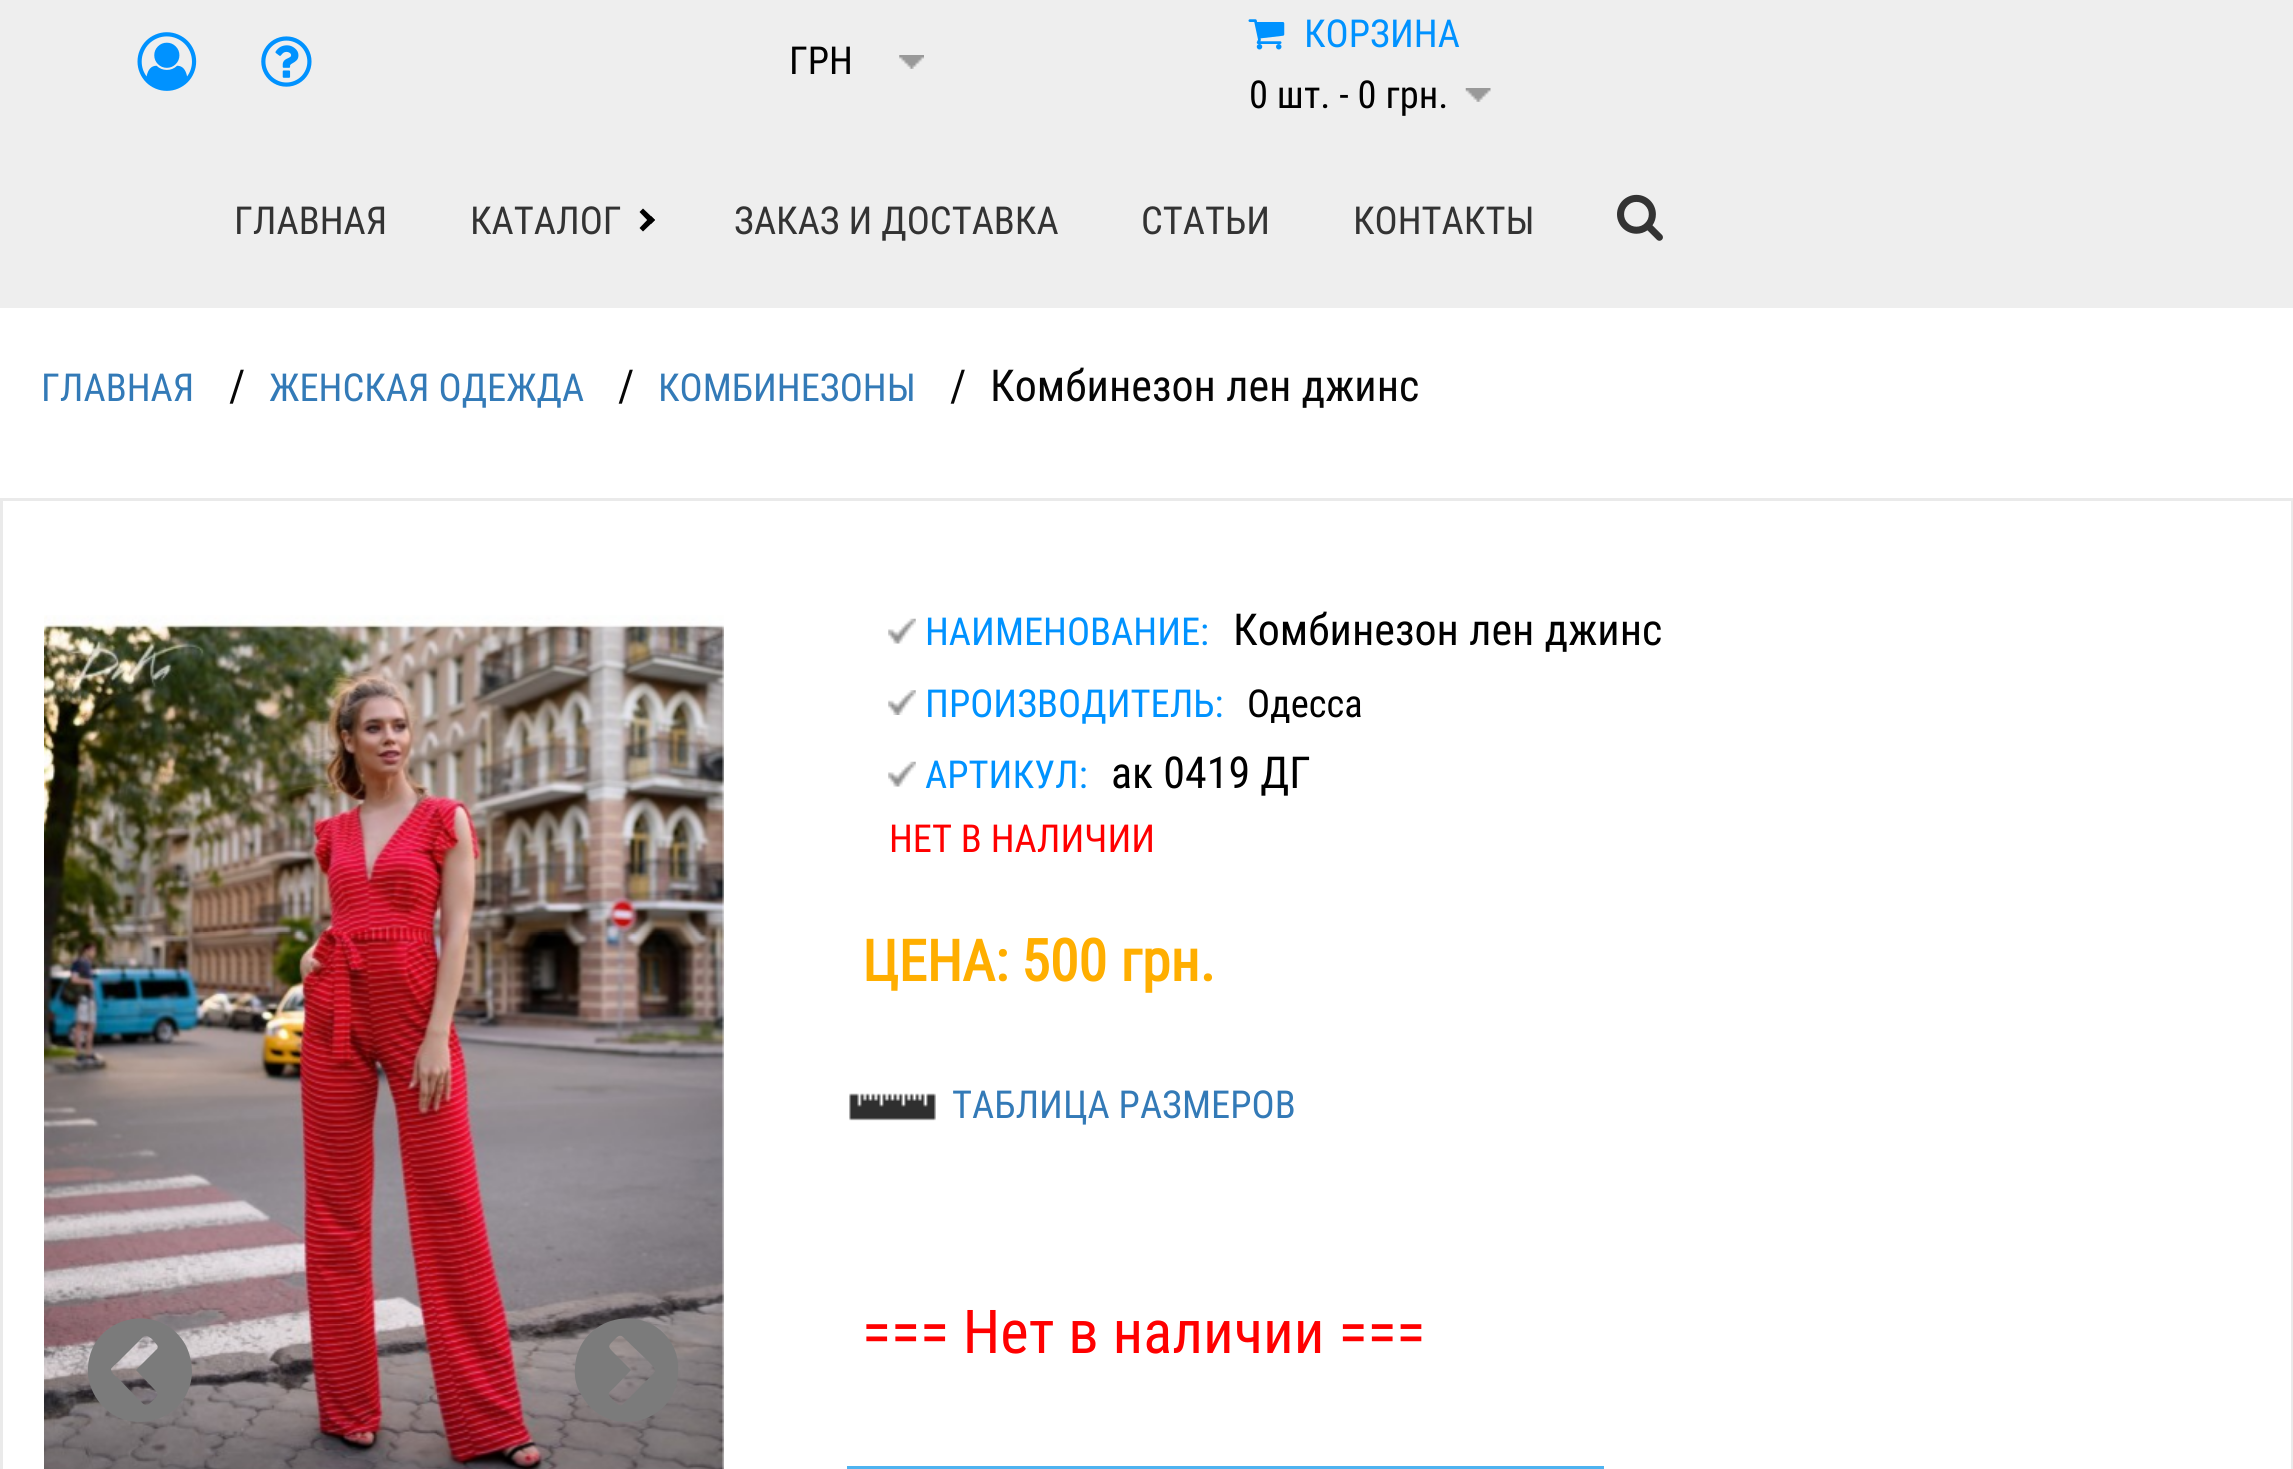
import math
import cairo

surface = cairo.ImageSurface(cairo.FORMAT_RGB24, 2293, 1469)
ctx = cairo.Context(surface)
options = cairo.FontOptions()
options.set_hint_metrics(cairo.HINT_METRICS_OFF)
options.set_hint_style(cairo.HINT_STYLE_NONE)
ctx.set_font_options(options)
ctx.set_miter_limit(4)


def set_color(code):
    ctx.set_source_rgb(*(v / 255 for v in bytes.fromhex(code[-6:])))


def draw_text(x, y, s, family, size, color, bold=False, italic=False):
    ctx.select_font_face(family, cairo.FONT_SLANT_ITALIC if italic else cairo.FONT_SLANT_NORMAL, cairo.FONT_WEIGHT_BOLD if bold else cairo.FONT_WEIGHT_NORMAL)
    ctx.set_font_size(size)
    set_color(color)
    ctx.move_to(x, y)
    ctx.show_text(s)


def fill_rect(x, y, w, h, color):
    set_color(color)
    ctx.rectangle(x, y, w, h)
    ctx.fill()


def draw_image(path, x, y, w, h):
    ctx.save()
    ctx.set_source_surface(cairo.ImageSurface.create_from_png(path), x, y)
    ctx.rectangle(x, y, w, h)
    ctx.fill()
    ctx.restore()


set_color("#ffffff")
ctx.paint()
fill_rect(0, 0, 2293, 308, "#eeeeee")
draw_image("assets/img1.png", 137, 32, 60, 59)
draw_image("assets/img2.png", 261, 36, 51, 51)
draw_image("assets/img3.png", 899, 55, 25, 14)
draw_text(789, 74, "ГРН", "Roboto Condensed", 38.5, "#000000")
draw_image("assets/img4.png", 1248, 19, 37, 31)
draw_text(1304, 47, "КОРЗИНА", "Roboto Condensed", 38.5, "#0092ff")
draw_text(1249, 108, "0 шт. - 0 грн.", "Roboto Condensed", 38.5, "#000000")
draw_image("assets/img5.png", 1465, 88, 26, 14)
draw_text(234, 234, "ГЛАВНАЯ", "Roboto Condensed", 38.5, "#333333")
draw_text(470, 234, "КАТАЛОГ", "Roboto Condensed", 38.5, "#333333")
set_color("#000000")
ctx.new_path()
ctx.move_to(639.5, 212)
ctx.line_to(643, 208.5)
ctx.line_to(655, 220)
ctx.line_to(651, 224)
ctx.close_path()
ctx.fill()
ctx.new_path()
ctx.move_to(639.5, 228)
ctx.line_to(651, 216)
ctx.line_to(655, 220)
ctx.line_to(643, 231.5)
ctx.close_path()
ctx.fill()
draw_text(734, 234, "ЗАКАЗ И ДОСТАВКА", "Roboto Condensed", 38.5, "#333333")
draw_text(1141, 234, "СТАТЬИ", "Roboto Condensed", 38.5, "#333333")
draw_text(1353, 234, "КОНТАКТЫ", "Roboto Condensed", 38.5, "#333333")
draw_image("assets/img6.png", 1617, 194, 46, 47)
draw_text(41, 401, "ГЛАВНАЯ", "Roboto Condensed", 38.5, "#337ab7")
draw_text(229, 401, "/", "Roboto Condensed", 44, "#060606")
draw_text(269, 401, "ЖЕНСКАЯ ОДЕЖДА", "Roboto Condensed", 38.5, "#337ab7")
draw_text(618, 401, "/", "Roboto Condensed", 44, "#060606")
draw_text(658, 401, "КОМБИНЕЗОНЫ", "Roboto Condensed", 38.5, "#337ab7")
draw_text(950, 401, "/", "Roboto Condensed", 44, "#060606")
draw_text(990, 401, "Комбинезон лен джинс", "Roboto Condensed", 44, "#060606")
ctx.rectangle(1.5, 499.5, 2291, 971)
set_color("#eaeaea")
ctx.set_line_width(3)
ctx.stroke()
draw_image("assets/img7.png", 44, 615, 680, 854)
set_color("#7b7b7b")
ctx.new_path()
ctx.move_to(149, 1404)
ctx.curve_to(157, 1396, 161, 1396, 153, 1388)
ctx.line_to(136, 1370)
ctx.line_to(157, 1349)
ctx.curve_to(158, 1348, 158, 1346, 157, 1345)
ctx.line_to(152, 1339)
ctx.curve_to(149, 1337, 146, 1334, 143, 1337)
ctx.line_to(118, 1362)
ctx.curve_to(117, 1363, 112, 1367, 111, 1369)
ctx.curve_to(111, 1373, 116, 1377, 118, 1378)
ctx.line_to(138, 1399)
ctx.curve_to(141, 1401, 145, 1408, 149, 1404)
ctx.close_path()
ctx.move_to(185, 1344)
ctx.curve_to(190, 1353, 192, 1363, 192, 1374)
ctx.curve_to(188, 1425, 121, 1440, 95, 1396)
ctx.curve_to(90, 1387, 87, 1377, 88, 1367)
ctx.curve_to(91, 1316, 159, 1300, 185, 1344)
ctx.close_path()
ctx.fill()
ctx.new_path()
ctx.move_to(623, 1404)
ctx.line_to(649, 1378)
ctx.curve_to(657, 1370, 657, 1371, 649, 1362)
ctx.line_to(623, 1337)
ctx.curve_to(620, 1334, 617, 1337, 615, 1339)
ctx.curve_to(608, 1346, 607, 1346, 614, 1353)
ctx.line_to(631, 1370)
ctx.line_to(614, 1388)
ctx.curve_to(607, 1394, 607, 1394, 614, 1401)
ctx.curve_to(616, 1403, 620, 1408, 623, 1404)
ctx.close_path()
ctx.move_to(672, 1344)
ctx.curve_to(677, 1353, 679, 1363, 678, 1374)
ctx.curve_to(675, 1425, 607, 1440, 582, 1396)
ctx.curve_to(576, 1387, 574, 1377, 575, 1367)
ctx.curve_to(578, 1316, 646, 1300, 672, 1344)
ctx.close_path()
ctx.fill()
draw_image("assets/img8.png", 888, 618, 28, 26)
draw_text(925, 645, "НАИМЕНОВАНИЕ:", "Roboto Condensed", 38.5, "#0092ff")
draw_text(1233, 645, "Комбинезон лен джинс", "Roboto Condensed", 44, "#000000")
draw_image("assets/img9.png", 888, 690, 28, 25)
draw_text(925, 717, "ПРОИЗВОДИТЕЛЬ:", "Roboto Condensed", 38.5, "#0092ff")
draw_text(1247, 717, "Одесса", "Roboto Condensed", 38.5, "#000000")
draw_image("assets/img8.png", 888, 761, 28, 26)
draw_text(925, 788, "АРТИКУЛ:", "Roboto Condensed", 38.5, "#0092ff")
draw_text(1111, 788, "ак 0419 ДГ", "Roboto Condensed", 44, "#000000")
draw_text(889, 852, "НЕТ В НАЛИЧИИ", "Roboto Condensed", 38.5, "#ff0000")
draw_text(862, 981, "ЦЕНА:", "Roboto Condensed", 57, "#ffae00", bold=True)
draw_text(1021, 981, "500 грн.", "Roboto Condensed", 58, "#ffae00", bold=True)
draw_image("assets/img10.png", 849, 1093, 87, 28)
draw_text(952, 1118, "ТАБЛИЦА РАЗМЕРОВ", "Roboto Condensed", 38.5, "#337ab7")
draw_text(862, 1353, "=== Нет в наличии ===", "Roboto Condensed", 60.5, "#ff0000")
fill_rect(847, 1466, 757, 3, "#4eb3f0")
surface.write_to_png("output.png")
